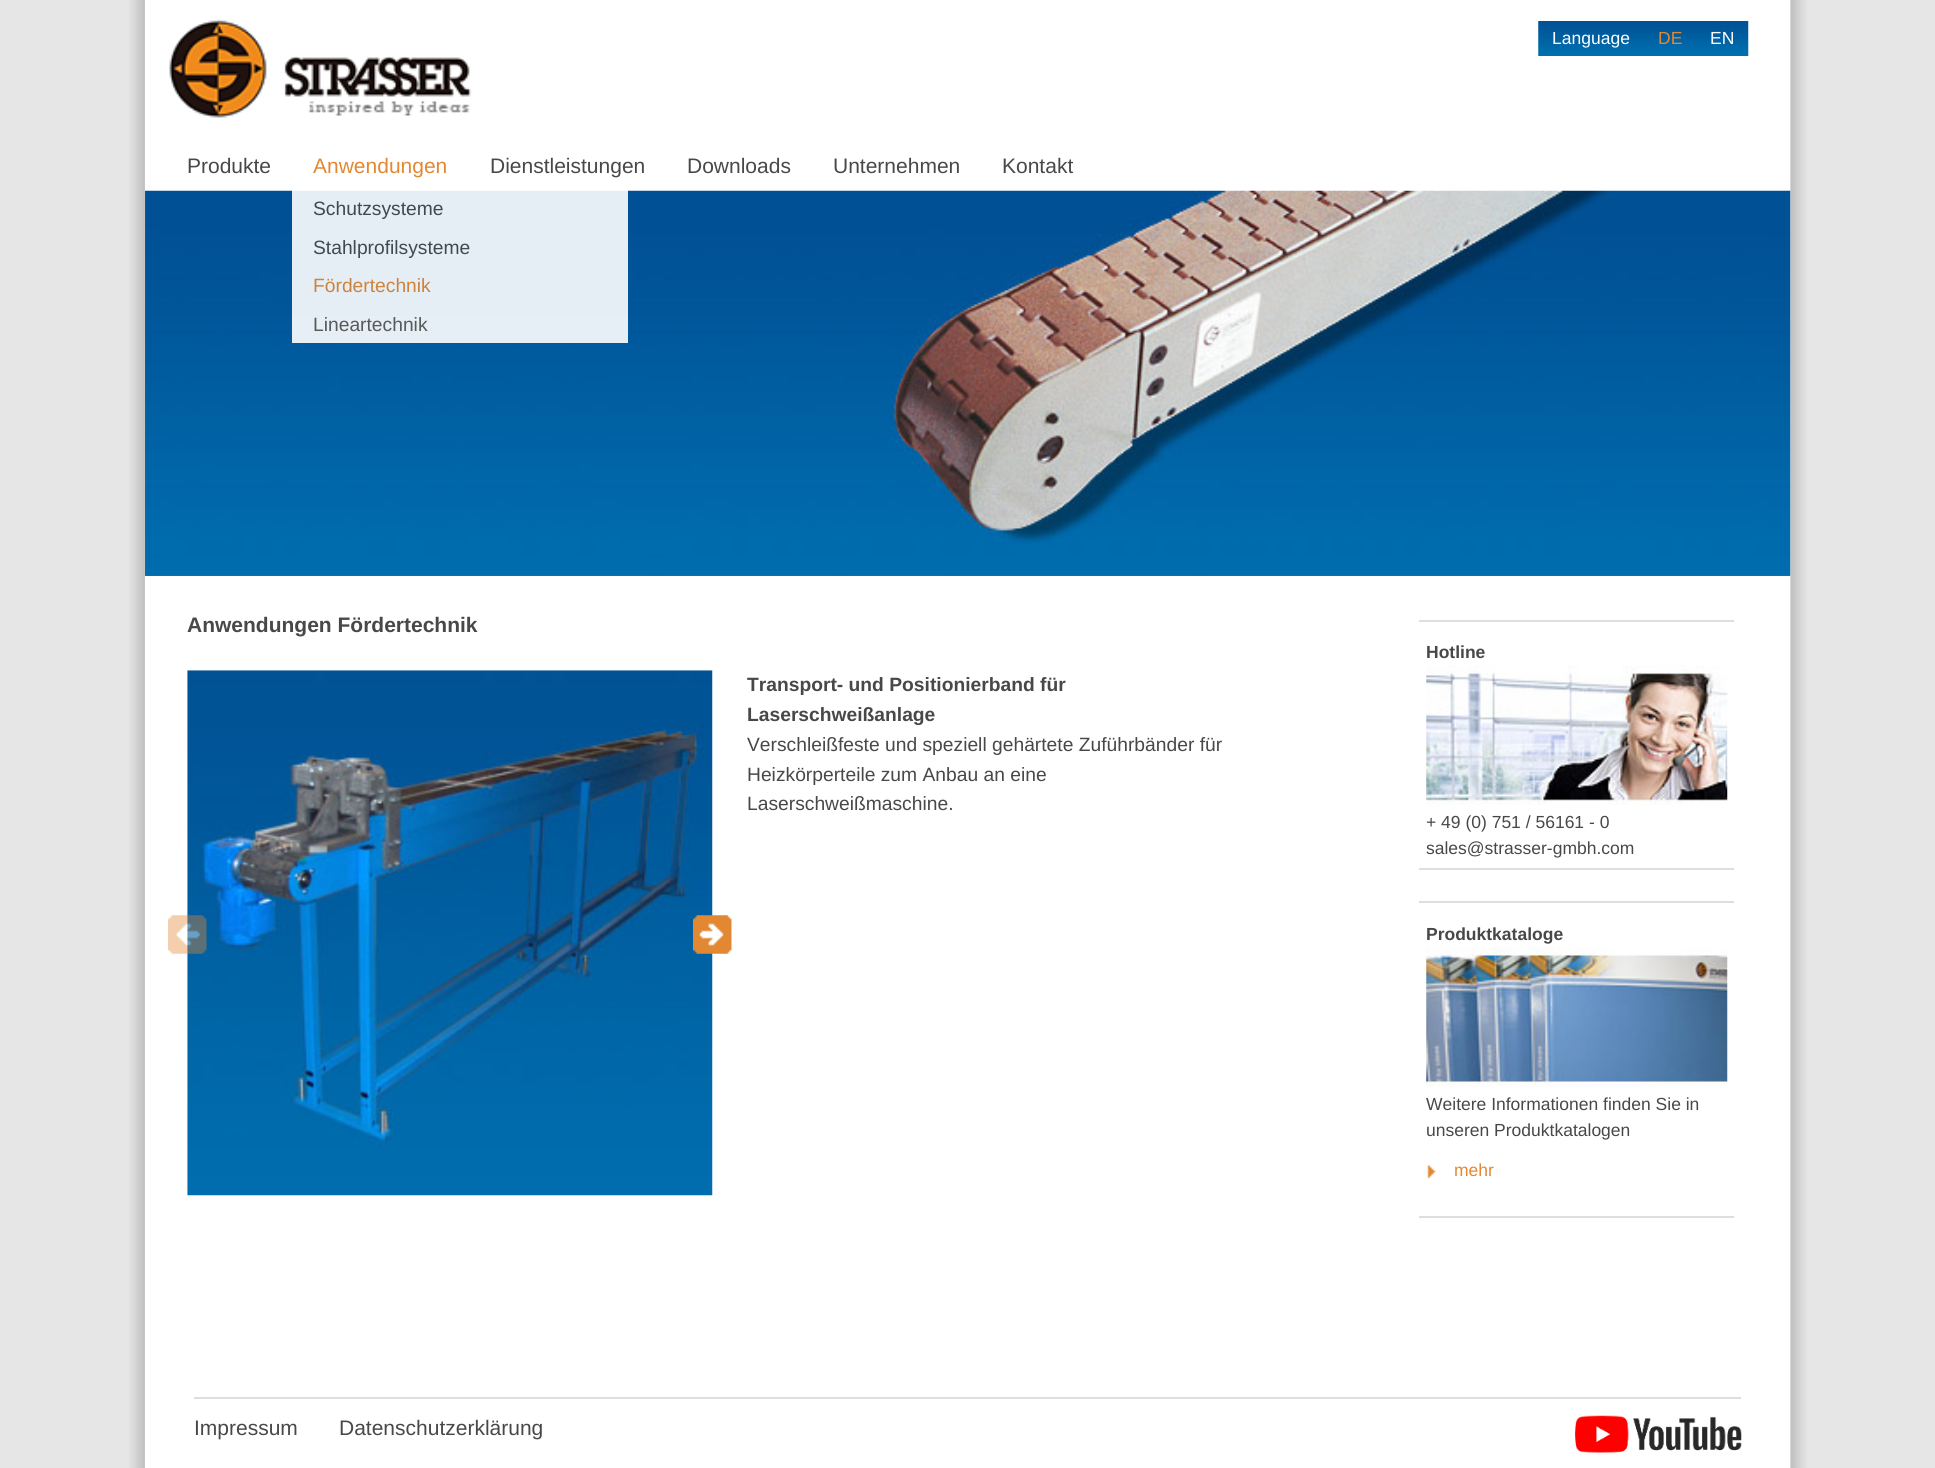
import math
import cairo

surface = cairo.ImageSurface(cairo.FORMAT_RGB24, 1935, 1468)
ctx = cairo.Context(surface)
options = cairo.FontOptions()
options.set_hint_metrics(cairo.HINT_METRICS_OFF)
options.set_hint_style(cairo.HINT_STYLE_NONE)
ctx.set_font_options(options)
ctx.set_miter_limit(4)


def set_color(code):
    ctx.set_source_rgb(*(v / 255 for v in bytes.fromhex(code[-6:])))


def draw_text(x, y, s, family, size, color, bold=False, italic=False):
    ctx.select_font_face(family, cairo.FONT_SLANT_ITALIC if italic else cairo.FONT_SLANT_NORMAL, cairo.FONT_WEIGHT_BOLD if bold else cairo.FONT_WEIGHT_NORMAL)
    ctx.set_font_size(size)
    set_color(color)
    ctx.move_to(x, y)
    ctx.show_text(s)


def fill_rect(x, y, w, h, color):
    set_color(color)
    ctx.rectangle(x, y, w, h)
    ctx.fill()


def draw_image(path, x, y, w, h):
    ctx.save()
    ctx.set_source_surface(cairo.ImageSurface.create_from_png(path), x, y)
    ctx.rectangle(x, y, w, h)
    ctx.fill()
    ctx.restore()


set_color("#e6e6e6")
ctx.paint()
draw_image("assets/img1.png", 129, 0, 1678, 1468)
fill_rect(145, 0, 1645, 1468, "#ffffff")
draw_image("assets/img2.png", 169, 19, 303, 99)
draw_image("assets/img3.png", 1538, 21, 211, 35)
draw_text(1552, 44, "Language", "Liberation Sans", 17.5, "#ffffff")
draw_text(1658, 44, "DE", "Liberation Sans", 17.5, "#e38832")
draw_text(1710, 44, "EN", "Liberation Sans", 17.5, "#ffffff")
draw_text(187, 173, "Produkte", "Liberation Sans", 21, "#484848")
draw_text(313, 173, "Anwendungen", "Liberation Sans", 21, "#e38832")
fill_rect(145, 191, 1645, 385, "#416ea3")
draw_image("assets/img4.png", 145, 190, 1646, 386)
ctx.set_source_rgba(1, 1, 1, 0.9)
ctx.rectangle(292, 190, 336, 38)
ctx.fill()
draw_text(313, 215, "Schutzsysteme", "Liberation Sans", 19.25, "#414950")
ctx.set_source_rgba(1, 1, 1, 0.9)
ctx.rectangle(292, 228, 336, 38)
ctx.fill()
draw_text(313, 254, "Stahlprofilsysteme", "Liberation Sans", 19.25, "#414950")
ctx.set_source_rgba(1, 1, 1, 0.9)
ctx.rectangle(292, 266, 336, 39)
ctx.fill()
draw_text(313, 292, "Fördertechnik", "Liberation Sans", 19.25, "#cc833c")
ctx.set_source_rgba(1, 1, 1, 0.9)
ctx.rectangle(292, 305, 336, 38)
ctx.fill()
draw_text(313, 331, "Lineartechnik", "Liberation Sans", 19.25, "#585959")
draw_text(490, 173, "Dienstleistungen", "Liberation Sans", 21, "#484848")
draw_text(687, 173, "Downloads", "Liberation Sans", 21, "#484848")
draw_text(833, 173, "Unternehmen", "Liberation Sans", 21, "#484848")
draw_text(1002, 173, "Kontakt", "Liberation Sans", 21, "#484848")
draw_text(187, 632, "Anwendungen Fördertechnik", "Liberation Sans", 21, "#484848", bold=True)
draw_image("assets/img5.png", 187, 670, 526, 526)
draw_text(747, 691, "Transport- und Positionierband für", "Liberation Sans", 19.25, "#484848", bold=True)
draw_text(747, 721, "Laserschweißanlage", "Liberation Sans", 19.25, "#484848", bold=True)
draw_text(747, 751, "Verschleißfeste und speziell gehärtete Zuführbänder für", "Liberation Sans", 19.25, "#484848")
draw_text(747, 781, "Heizkörperteile zum Anbau an eine", "Liberation Sans", 19.25, "#484848")
draw_text(747, 810, "Laserschweißmaschine.", "Liberation Sans", 19.25, "#484848")
fill_rect(1419, 620, 315, 2, "#dedede")
fill_rect(1419, 868, 315, 2, "#dedede")
draw_text(1426, 658, "Hotline", "Liberation Sans", 17.5, "#484848", bold=True)
draw_image("assets/img6.png", 1426, 665, 302, 140)
draw_text(1426, 828, "+ 49 (0) 751 / 56161 - 0", "Liberation Sans", 17.5, "#484848")
draw_text(1426, 854, "sales@strasser-gmbh.com", "Liberation Sans", 17.5, "#484848")
fill_rect(1419, 901, 315, 2, "#dedede")
fill_rect(1419, 1216, 315, 2, "#dedede")
draw_text(1426, 940, "Produktkataloge", "Liberation Sans", 17.5, "#484848", bold=True)
draw_image("assets/img7.png", 1426, 947, 302, 140)
draw_text(1426, 1110, "Weitere Informationen finden Sie in", "Liberation Sans", 17.5, "#484848")
draw_text(1426, 1136, "unseren Produktkatalogen", "Liberation Sans", 17.5, "#484848")
draw_image("assets/img8.png", 1427, 1165, 9, 14)
draw_text(1454, 1176, "mehr", "Liberation Sans", 17.5, "#e38832")
fill_rect(194, 1397, 1547, 2, "#dedede")
draw_text(194, 1435, "Impressum", "Liberation Sans", 21, "#484848")
draw_text(339, 1435, "Datenschutzerklärung", "Liberation Sans", 21, "#484848")
draw_image("assets/img9.png", 1575, 1415, 167, 38)
draw_image("assets/img10.png", 168, 915, 39, 39)
draw_image("assets/img11.png", 693, 915, 39, 39)
surface.write_to_png("output.png")
